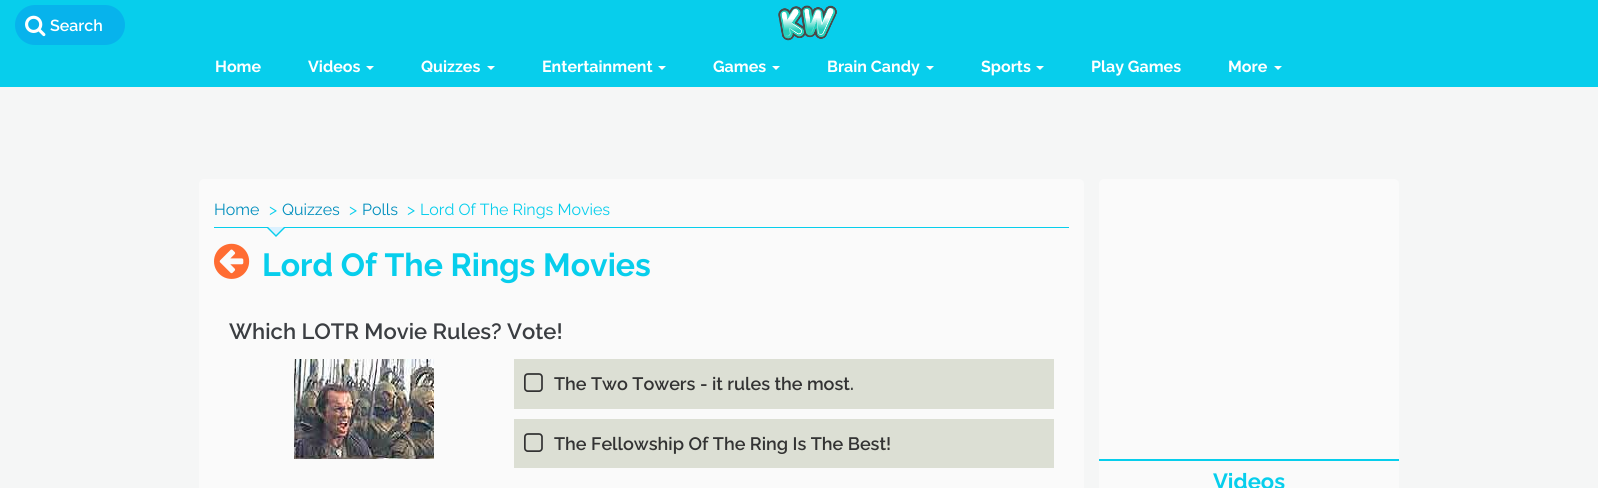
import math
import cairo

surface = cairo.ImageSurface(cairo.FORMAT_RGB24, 1598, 488)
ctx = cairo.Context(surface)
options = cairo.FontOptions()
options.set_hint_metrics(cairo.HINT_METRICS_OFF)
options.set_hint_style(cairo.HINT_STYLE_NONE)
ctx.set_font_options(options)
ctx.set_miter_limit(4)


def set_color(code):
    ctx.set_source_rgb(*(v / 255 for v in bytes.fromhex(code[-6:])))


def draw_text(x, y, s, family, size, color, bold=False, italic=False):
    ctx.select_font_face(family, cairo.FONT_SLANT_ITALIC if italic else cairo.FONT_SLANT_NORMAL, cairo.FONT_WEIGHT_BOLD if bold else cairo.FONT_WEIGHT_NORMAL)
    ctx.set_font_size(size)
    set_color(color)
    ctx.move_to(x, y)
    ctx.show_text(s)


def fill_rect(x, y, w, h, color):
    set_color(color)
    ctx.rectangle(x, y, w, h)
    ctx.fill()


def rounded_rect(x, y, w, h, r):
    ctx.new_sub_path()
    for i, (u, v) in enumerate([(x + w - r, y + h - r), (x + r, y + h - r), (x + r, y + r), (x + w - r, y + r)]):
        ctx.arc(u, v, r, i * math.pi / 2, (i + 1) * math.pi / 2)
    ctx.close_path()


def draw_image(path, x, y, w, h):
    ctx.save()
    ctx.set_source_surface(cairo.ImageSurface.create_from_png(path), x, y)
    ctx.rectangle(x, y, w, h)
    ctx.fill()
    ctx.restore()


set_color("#f5f6f6")
ctx.paint()
fill_rect(0, 0, 1598, 87, "#07ceec")
set_color("#07b3ec")
rounded_rect(15, 5, 110, 40, 20)
ctx.fill()
draw_image("assets/img1.png", 25, 15, 21, 22)
draw_text(50, 31, "Search", "Raleway SemiBold", 16, "#ffffff")
draw_image("assets/img2.png", 778, 5, 59, 36)
draw_text(215, 72, "Home", "Raleway", 16, "#ffffff", bold=True)
draw_text(308, 72, "Videos", "Raleway", 16, "#ffffff", bold=True)
ctx.new_path()
ctx.move_to(366, 66)
ctx.line_to(374, 66)
ctx.line_to(370, 70)
ctx.close_path()
ctx.fill()
draw_text(421, 72, "Quizzes", "Raleway", 16, "#ffffff", bold=True)
ctx.new_path()
ctx.move_to(487, 66)
ctx.line_to(495, 66)
ctx.line_to(491, 70)
ctx.close_path()
ctx.fill()
draw_text(542, 72, "Entertainment", "Raleway", 16, "#ffffff", bold=True)
ctx.new_path()
ctx.move_to(658, 66)
ctx.line_to(666, 66)
ctx.line_to(662, 70)
ctx.close_path()
ctx.fill()
draw_text(713, 72, "Games", "Raleway", 16, "#ffffff", bold=True)
ctx.new_path()
ctx.move_to(772, 66)
ctx.line_to(780, 66)
ctx.line_to(776, 70)
ctx.close_path()
ctx.fill()
draw_text(827, 72, "Brain Candy", "Raleway", 16, "#ffffff", bold=True)
ctx.new_path()
ctx.move_to(926, 66)
ctx.line_to(934, 66)
ctx.line_to(930, 70)
ctx.close_path()
ctx.fill()
draw_text(981, 72, "Sports", "Raleway", 16, "#ffffff", bold=True)
ctx.new_path()
ctx.move_to(1036, 66)
ctx.line_to(1044, 66)
ctx.line_to(1040, 70)
ctx.close_path()
ctx.fill()
draw_text(1091, 72, "Play Games", "Raleway", 16, "#ffffff", bold=True)
draw_text(1228, 72, "More", "Raleway", 16, "#ffffff", bold=True)
ctx.new_path()
ctx.move_to(1274, 66)
ctx.line_to(1282, 66)
ctx.line_to(1278, 70)
ctx.close_path()
ctx.fill()
set_color("#fafafa")
rounded_rect(199, 179, 885, 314, 5)
ctx.fill()
fill_rect(214, 227, 855, 1, "#07ceec")
draw_text(214, 215, "Home", "Raleway", 16, "#008ebd")
draw_text(269, 215, ">", "Raleway", 16, "#07ceec")
draw_text(282, 215, "Quizzes", "Raleway", 16, "#008ebd")
draw_text(349, 215, ">", "Raleway", 16, "#07ceec")
draw_text(362, 215, "Polls", "Raleway", 16, "#008ebd")
draw_text(407, 215, ">", "Raleway", 16, "#07ceec")
draw_text(420, 215, "Lord Of The Rings Movies", "Raleway", 16, "#07ceec")
ctx.new_path()
ctx.move_to(266, 227)
ctx.line_to(286, 227)
ctx.line_to(276, 237)
ctx.close_path()
ctx.fill()
set_color("#dbf1ff")
ctx.new_path()
ctx.move_to(268, 227)
ctx.line_to(284, 227)
ctx.line_to(276, 235)
ctx.close_path()
ctx.fill()
draw_image("assets/img3.png", 214, 243, 36, 36)
draw_text(262, 276, "Lord Of The Rings Movies", "Raleway", 32, "#07ceec", bold=True)
draw_text(229, 339, "Which LOTR Movie Rules? Vote!", "Raleway SemiBold", 22, "#3b3e42")
draw_image("assets/img4.png", 294, 359, 140, 100)
fill_rect(514, 359, 540, 50, "#dcdfd4")
draw_image("assets/img5.png", 524, 373, 19, 19)
draw_text(554, 390, "The Two Towers - it rules the most.", "Raleway SemiBold", 18, "#333333")
fill_rect(514, 419, 540, 49, "#dcdfd4")
draw_image("assets/img5.png", 524, 433, 19, 19)
draw_text(554, 450, "The Fellowship Of The Ring Is The Best!", "Raleway SemiBold", 18, "#333333")
set_color("#fafafa")
rounded_rect(1099, 179, 300, 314, 5)
ctx.fill()
fill_rect(1099, 459, 300, 2, "#07ceec")
draw_text(1213, 489, "Videos", "Raleway", 22, "#07ceec", bold=True)
surface.write_to_png("output.png")
